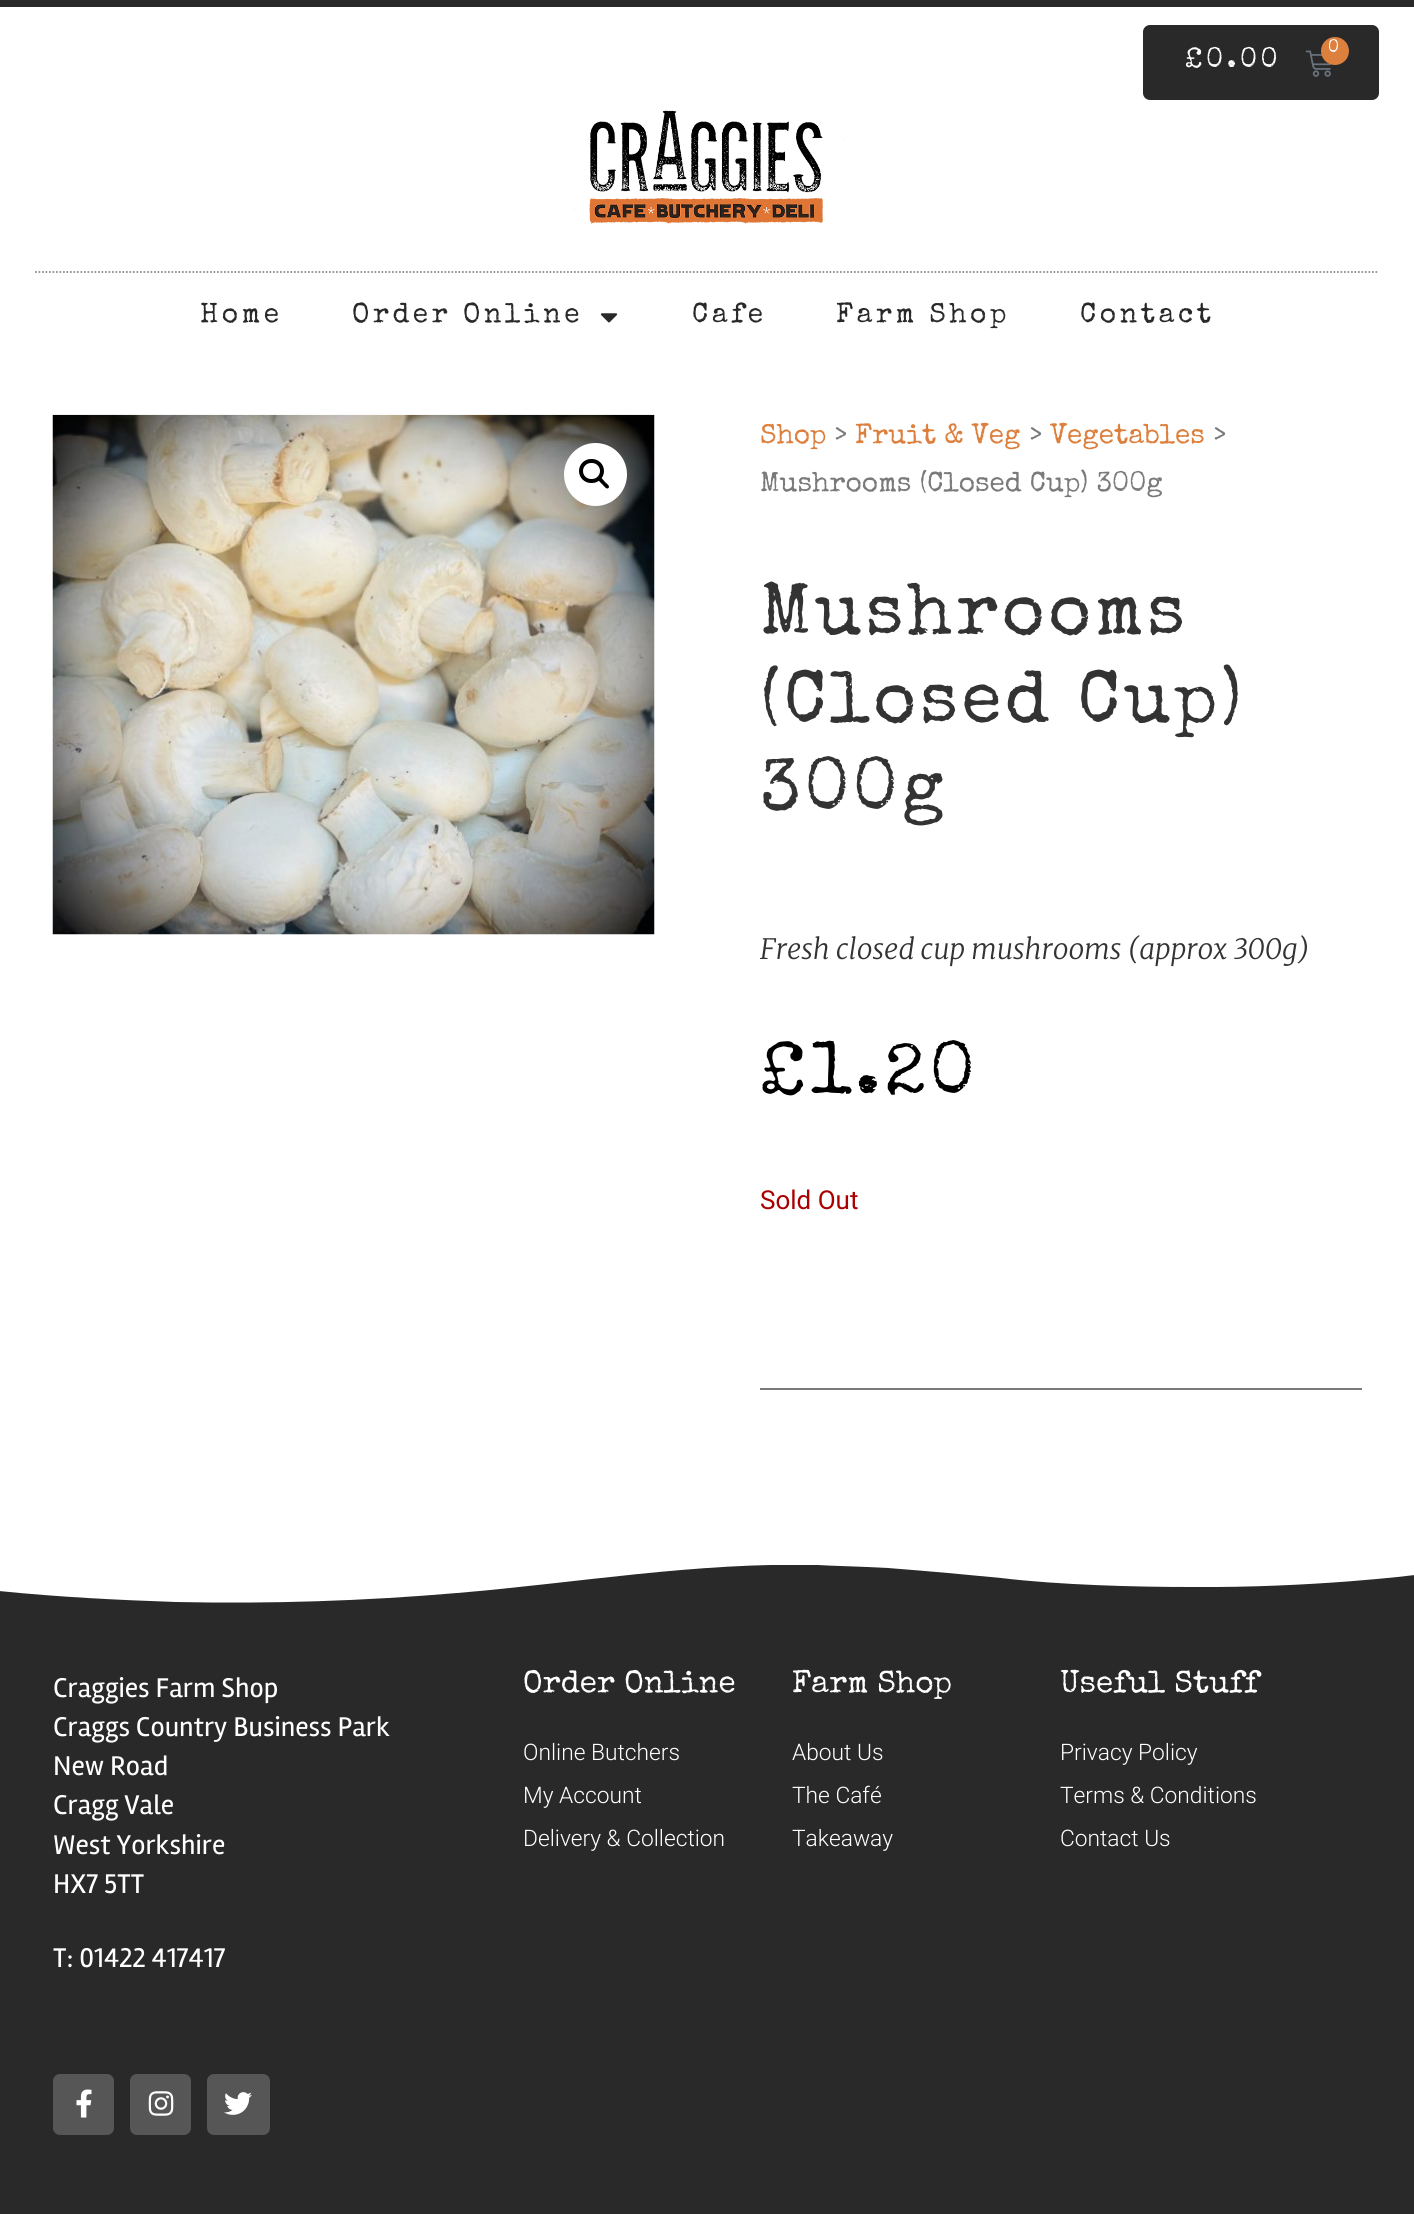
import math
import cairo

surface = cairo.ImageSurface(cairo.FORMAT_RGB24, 1414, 2214)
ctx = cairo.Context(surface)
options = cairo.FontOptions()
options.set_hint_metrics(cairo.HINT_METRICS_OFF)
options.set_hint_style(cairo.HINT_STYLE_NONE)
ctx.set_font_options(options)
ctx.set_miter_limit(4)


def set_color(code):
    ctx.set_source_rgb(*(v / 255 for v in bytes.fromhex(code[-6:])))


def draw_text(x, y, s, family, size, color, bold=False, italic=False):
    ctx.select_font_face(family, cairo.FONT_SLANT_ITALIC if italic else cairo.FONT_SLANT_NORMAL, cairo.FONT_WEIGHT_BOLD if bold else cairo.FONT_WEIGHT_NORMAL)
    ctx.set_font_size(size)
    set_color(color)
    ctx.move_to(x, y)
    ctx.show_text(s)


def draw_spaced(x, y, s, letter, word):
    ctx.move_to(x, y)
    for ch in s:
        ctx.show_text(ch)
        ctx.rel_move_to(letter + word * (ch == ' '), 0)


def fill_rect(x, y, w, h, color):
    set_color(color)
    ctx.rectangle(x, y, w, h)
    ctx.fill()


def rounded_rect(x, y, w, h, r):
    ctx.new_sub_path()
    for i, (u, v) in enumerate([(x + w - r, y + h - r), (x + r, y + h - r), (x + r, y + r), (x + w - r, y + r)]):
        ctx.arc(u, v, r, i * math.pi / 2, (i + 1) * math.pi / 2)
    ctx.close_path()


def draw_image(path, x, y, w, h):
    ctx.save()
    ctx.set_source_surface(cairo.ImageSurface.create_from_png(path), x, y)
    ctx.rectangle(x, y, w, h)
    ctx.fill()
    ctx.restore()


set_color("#ffffff")
ctx.paint()
fill_rect(0, 0, 1414, 7, "#29292a")
rounded_rect(1143, 25, 236, 75, 7)
ctx.fill()
ctx.select_font_face("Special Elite")
ctx.set_font_size(28)
set_color("#ffffff")
draw_spaced(1185, 67, "£0.00", 3.5, 0)
draw_image("assets/img1.png", 1305, 50, 27, 27)
set_color("#dd803e")
ctx.arc(1335, 51, 14, 0, 2 * math.pi)
ctx.fill()
ctx.set_font_size(18)
set_color("#ffffff")
draw_spaced(1328, 52, "0", 3.5, 0)
draw_image("assets/img2.png", 573, 100, 279, 124)
ctx.new_path()
ctx.move_to(35, 272)
ctx.line_to(1379, 272)
set_color("#8e8e8e")
ctx.set_line_width(1.8)
ctx.set_dash([1.75, 1.75])
ctx.stroke()
ctx.set_font_size(28)
set_color("#29292a")
draw_spaced(200, 322, "Home", 3.5, 0)
draw_spaced(352, 322, "Order Online", 3.5, 0)
draw_image("assets/img3.png", 600, 313, 18, 10)
draw_spaced(692, 322, "Cafe", 3.5, 0)
draw_spaced(836, 322, "Farm Shop", 3.5, 0)
draw_spaced(1080, 322, "Contact", 3.5, 0)
draw_image("assets/img4.png", 52, 414, 603, 521)
set_color("#ffffff")
ctx.arc(595.5, 474.5, 31.5, 0, 2 * math.pi)
ctx.fill()
rounded_rect(581, 461, 21, 20, 10)
set_color("#000000")
ctx.set_line_width(4)
ctx.set_dash([])
ctx.stroke()
ctx.new_path()
ctx.move_to(599, 478)
ctx.curve_to(601, 476, 604, 481, 605, 482)
ctx.curve_to(606, 483, 610.5, 486, 608.5, 488)
ctx.curve_to(606.5, 490, 603.5, 485.5, 602.5, 484.5)
ctx.curve_to(601.5, 483.5, 597, 480, 599, 478)
ctx.close_path()
ctx.fill()
draw_text(760, 443, "Shop", "Special Elite", 28, "#dd803e")
draw_text(834, 443, ">", "Special Elite", 28, "#7a7a7a")
draw_text(855, 443, "Fruit & Veg", "Special Elite", 28, "#dd803e")
draw_text(1029, 443, ">", "Special Elite", 28, "#7a7a7a")
draw_text(1050, 443, "Vegetables", "Special Elite", 28, "#dd803e")
draw_text(1213, 443, ">", "Special Elite", 28, "#7a7a7a")
draw_text(760, 491, "Mushrooms (Closed Cup) 300g", "Special Elite", 28, "#7a7a7a")
ctx.set_font_size(73.5)
set_color("#333333")
draw_spaced(760, 633, "Mushrooms", 3.5, 0)
draw_spaced(760, 721, "(Closed Cup)", 3.5, 0)
draw_spaced(760, 809, "300g", 3.5, 0)
draw_text(760, 959, "Fresh closed cup mushrooms (approx 300g)", "Merriweather Light", 28, "#333333", italic=True)
ctx.select_font_face("Special Elite")
ctx.set_font_size(73.5)
set_color("#000000")
draw_spaced(760, 1093, "£1.20", 3.5, 0)
draw_text(760, 1209, "Sold Out", "Roboto", 26, "#aa0000")
fill_rect(760, 1388, 602, 2, "#7a7a7a")
fill_rect(0, 1565, 1414, 649, "#29292a")
set_color("#ffffff")
ctx.new_path()
ctx.move_to(818, 1565)
ctx.curve_to(697, 1562, 577, 1583, 457, 1593)
ctx.curve_to(364, 1601, 270, 1604, 176, 1602)
ctx.curve_to(117, 1600, 58, 1597, -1, 1591)
ctx.line_to(-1, 1563)
ctx.line_to(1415, 1563)
ctx.line_to(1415, 1575)
ctx.curve_to(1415, 1575, 1313, 1588, 1191, 1587)
ctx.curve_to(1135, 1587, 1059, 1585, 1001, 1578)
ctx.curve_to(971, 1575, 927, 1571, 888, 1568)
ctx.curve_to(850, 1566, 832, 1566, 818, 1565)
ctx.close_path()
ctx.fill()
draw_text(53, 1697, "Craggies Farm Shop", "Rambla", 28, "#ffffff")
draw_text(53, 1736, "Craggs Country Business Park", "Rambla", 28, "#ffffff")
draw_text(53, 1775, "New Road", "Rambla", 28, "#ffffff")
draw_text(53, 1814, "Cragg Vale", "Rambla", 28, "#ffffff")
draw_text(53, 1854, "West Yorkshire", "Rambla", 28, "#ffffff")
draw_text(53, 1893, "HX7 5TT", "Rambla", 28, "#ffffff")
draw_text(53, 1967, "T: 01422 417417", "Rambla", 28, "#ffffff")
set_color("#565657")
rounded_rect(53, 2074, 61, 61, 7)
ctx.fill()
draw_image("assets/img5.png", 76, 2089, 16, 29)
rounded_rect(130, 2074, 61, 61, 7)
ctx.fill()
draw_image("assets/img6.png", 148, 2091, 26, 25)
rounded_rect(207, 2074, 63, 61, 7)
ctx.fill()
draw_image("assets/img7.png", 224, 2092, 28, 23)
draw_text(523, 1692, "Order Online", "Special Elite", 31.5, "#ffffff")
draw_text(523, 1760, "Online Butchers", "Roboto Light", 22.75, "#ffffff")
draw_text(523, 1803, "My Account", "Roboto Light", 22.75, "#ffffff")
draw_text(523, 1846, "Delivery & Collection", "Roboto Light", 22.75, "#ffffff")
draw_text(792, 1692, "Farm Shop", "Special Elite", 31.5, "#ffffff")
draw_text(792, 1760, "About Us", "Roboto Light", 22.75, "#ffffff")
draw_text(792, 1803, "The Café", "Roboto Light", 22.75, "#ffffff")
draw_text(792, 1846, "Takeaway", "Roboto Light", 22.75, "#ffffff")
draw_text(1060, 1692, "Useful Stuff", "Special Elite", 31.5, "#ffffff")
draw_text(1060, 1760, "Privacy Policy", "Roboto Light", 22.75, "#ffffff")
draw_text(1060, 1803, "Terms & Conditions", "Roboto Light", 22.75, "#ffffff")
draw_text(1060, 1846, "Contact Us", "Roboto Light", 22.75, "#ffffff")
surface.write_to_png("output.png")
